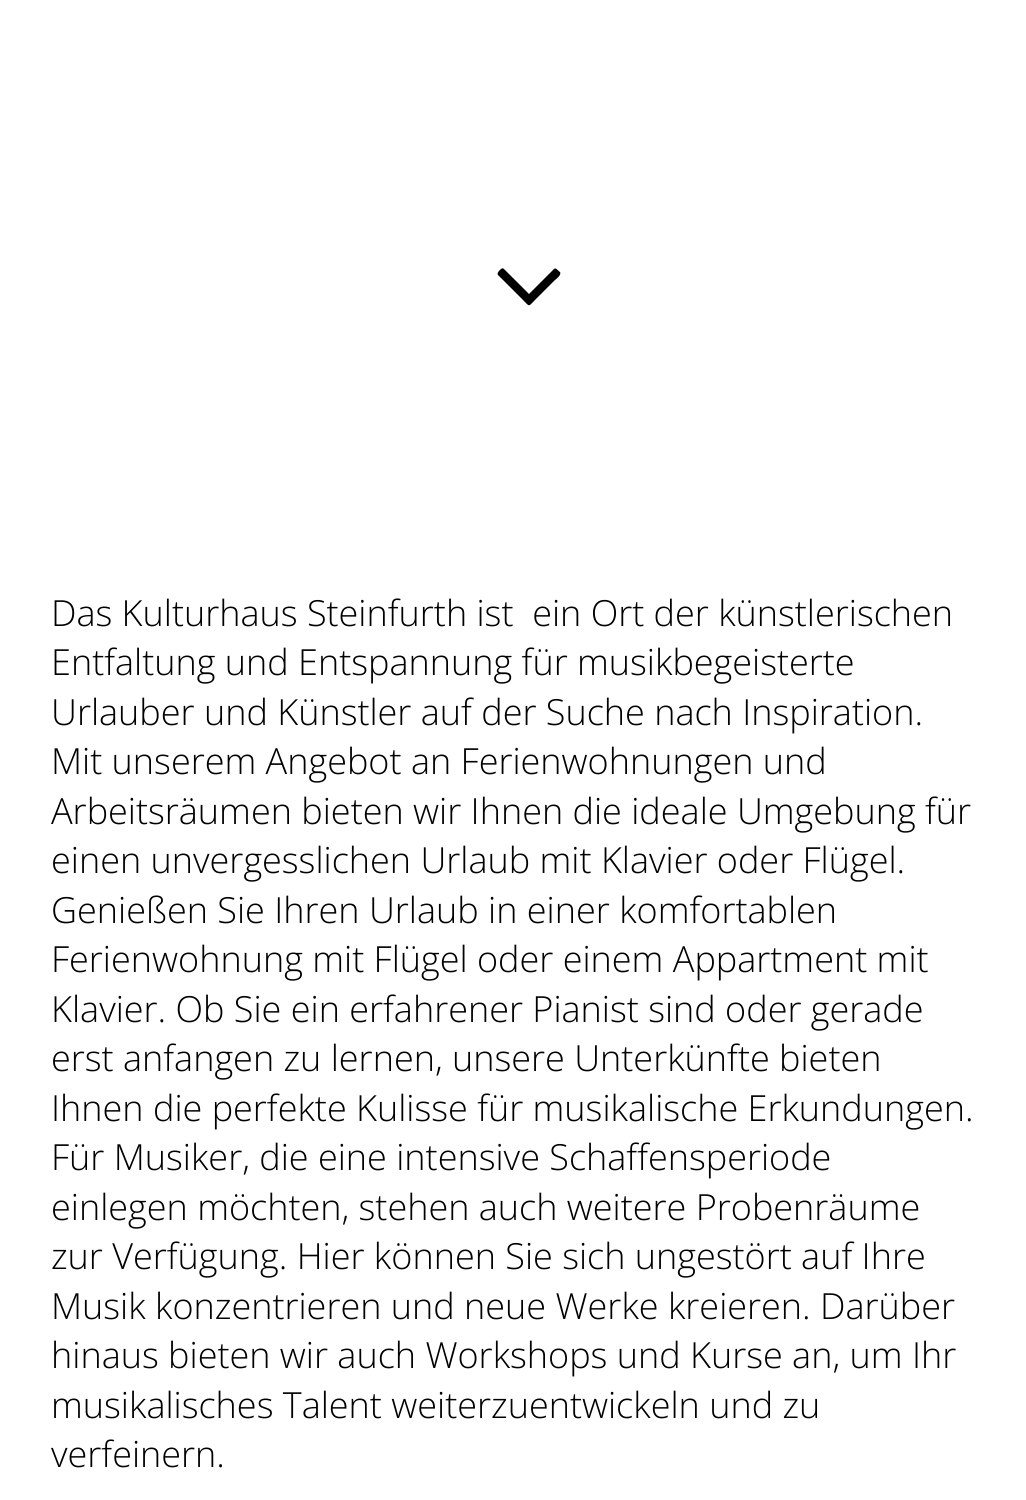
import math
import cairo

surface = cairo.ImageSurface(cairo.FORMAT_RGB24, 1026, 1500)
ctx = cairo.Context(surface)
options = cairo.FontOptions()
options.set_hint_metrics(cairo.HINT_METRICS_OFF)
options.set_hint_style(cairo.HINT_STYLE_NONE)
ctx.set_font_options(options)
ctx.set_miter_limit(4)


def set_color(code):
    ctx.set_source_rgb(*(v / 255 for v in bytes.fromhex(code[-6:])))


def draw_text(x, y, s, family, size, color, bold=False, italic=False):
    ctx.select_font_face(family, cairo.FONT_SLANT_ITALIC if italic else cairo.FONT_SLANT_NORMAL, cairo.FONT_WEIGHT_BOLD if bold else cairo.FONT_WEIGHT_NORMAL)
    ctx.set_font_size(size)
    set_color(color)
    ctx.move_to(x, y)
    ctx.show_text(s)


set_color("#ffffff")
ctx.paint()
set_color("#000000")
ctx.new_path()
ctx.move_to(560, 272)
ctx.curve_to(562, 275, 555, 280, 555, 280)
ctx.line_to(535, 300)
ctx.curve_to(528, 307, 530, 307, 523, 300)
ctx.line_to(498, 275)
ctx.curve_to(497, 274, 498, 272, 499, 271)
ctx.curve_to(500, 270, 502, 267, 504, 269)
ctx.line_to(529, 294)
ctx.line_to(554, 269)
ctx.curve_to(556, 267, 558, 271, 560, 272)
ctx.close_path()
ctx.fill()
draw_text(51, 626, "Das Kulturhaus Steinfurth ist  ein Ort der künstlerischen", "Open Sans Light", 36, "#000000")
draw_text(51, 675, "Entfaltung und Entspannung für musikbegeisterte", "Open Sans Light", 36, "#000000")
draw_text(51, 725, "Urlauber und Künstler auf der Suche nach Inspiration.", "Open Sans Light", 36, "#000000")
draw_text(51, 774, "Mit unserem Angebot an Ferienwohnungen und", "Open Sans Light", 36, "#000000")
draw_text(51, 824, "Arbeitsräumen bieten wir Ihnen die ideale Umgebung für", "Open Sans Light", 36, "#000000")
draw_text(51, 873, "einen unvergesslichen Urlaub mit Klavier oder Flügel.", "Open Sans Light", 36, "#000000")
draw_text(51, 923, "Genießen Sie Ihren Urlaub in einer komfortablen", "Open Sans Light", 36, "#000000")
draw_text(51, 972, "Ferienwohnung mit Flügel oder einem Appartment mit", "Open Sans Light", 36, "#000000")
draw_text(51, 1022, "Klavier. Ob Sie ein erfahrener Pianist sind oder gerade", "Open Sans Light", 36, "#000000")
draw_text(51, 1071, "erst anfangen zu lernen, unsere Unterkünfte bieten", "Open Sans Light", 36, "#000000")
draw_text(51, 1121, "Ihnen die perfekte Kulisse für musikalische Erkundungen.", "Open Sans Light", 36, "#000000")
draw_text(51, 1170, "Für Musiker, die eine intensive Schaffensperiode", "Open Sans Light", 36, "#000000")
draw_text(51, 1220, "einlegen möchten, stehen auch weitere Probenräume", "Open Sans Light", 36, "#000000")
draw_text(51, 1269, "zur Verfügung. Hier können Sie sich ungestört auf Ihre", "Open Sans Light", 36, "#000000")
draw_text(51, 1319, "Musik konzentrieren und neue Werke kreieren. Darüber", "Open Sans Light", 36, "#000000")
draw_text(51, 1368, "hinaus bieten wir auch Workshops und Kurse an, um Ihr", "Open Sans Light", 36, "#000000")
draw_text(51, 1418, "musikalisches Talent weiterzuentwickeln und zu", "Open Sans Light", 36, "#000000")
draw_text(51, 1467, "verfeinern.", "Open Sans Light", 36, "#000000")
surface.write_to_png("output.png")
